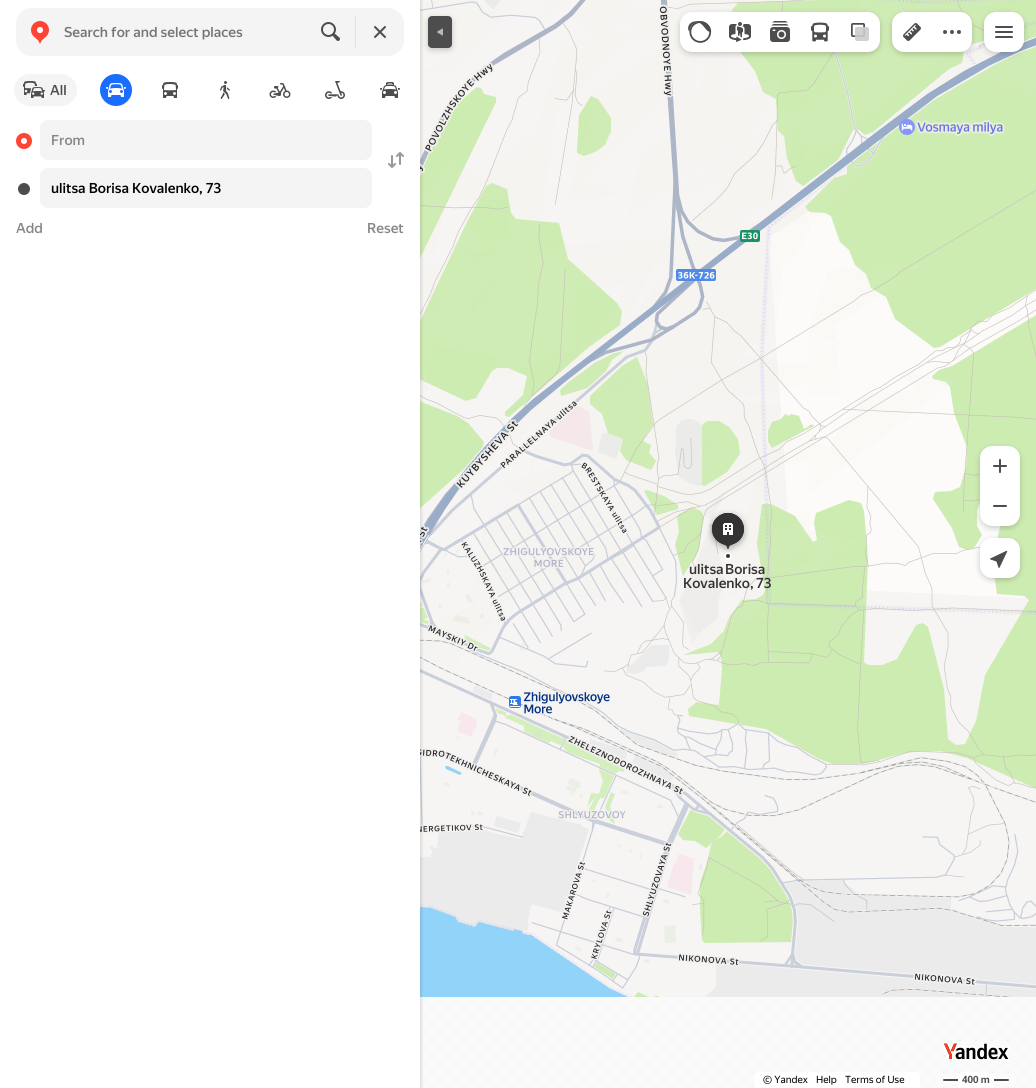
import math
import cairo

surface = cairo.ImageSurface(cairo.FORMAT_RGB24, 1036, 1088)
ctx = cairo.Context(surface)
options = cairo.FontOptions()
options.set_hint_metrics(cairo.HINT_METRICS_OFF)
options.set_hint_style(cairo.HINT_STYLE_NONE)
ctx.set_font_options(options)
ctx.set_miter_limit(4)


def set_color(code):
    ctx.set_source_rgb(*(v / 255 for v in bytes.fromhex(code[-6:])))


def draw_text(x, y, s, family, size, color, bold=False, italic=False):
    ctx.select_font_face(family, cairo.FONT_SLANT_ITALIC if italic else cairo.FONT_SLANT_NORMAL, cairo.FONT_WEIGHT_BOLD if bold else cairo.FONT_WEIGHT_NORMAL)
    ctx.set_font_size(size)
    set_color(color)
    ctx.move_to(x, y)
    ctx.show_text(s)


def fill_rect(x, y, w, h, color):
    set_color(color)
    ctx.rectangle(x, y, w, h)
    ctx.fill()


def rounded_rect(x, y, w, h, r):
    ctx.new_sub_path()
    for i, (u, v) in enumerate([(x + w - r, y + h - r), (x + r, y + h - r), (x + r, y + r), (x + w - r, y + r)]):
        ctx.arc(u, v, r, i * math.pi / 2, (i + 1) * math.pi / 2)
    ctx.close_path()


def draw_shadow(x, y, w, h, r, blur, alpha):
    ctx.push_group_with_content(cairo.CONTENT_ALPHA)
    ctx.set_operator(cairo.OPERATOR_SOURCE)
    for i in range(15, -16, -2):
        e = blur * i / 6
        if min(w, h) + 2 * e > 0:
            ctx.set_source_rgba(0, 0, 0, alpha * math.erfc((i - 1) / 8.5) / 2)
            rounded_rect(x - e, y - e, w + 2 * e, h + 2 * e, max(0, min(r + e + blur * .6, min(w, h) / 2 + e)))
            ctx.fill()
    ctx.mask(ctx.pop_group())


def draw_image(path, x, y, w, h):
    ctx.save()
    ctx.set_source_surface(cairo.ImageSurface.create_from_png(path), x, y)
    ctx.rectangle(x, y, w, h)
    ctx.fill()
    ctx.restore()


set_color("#ffffff")
ctx.paint()
draw_image("assets/img1.png", 420, 997, 616, 91)
draw_image("assets/img26.png", 420, 0, 114, 229)
draw_image("assets/img29.png", 420, 229, 114, 256)
draw_image("assets/img32.png", 420, 485, 114, 256)
draw_image("assets/img35.png", 420, 741, 114, 256)
set_color("#000000")
draw_shadow(2, 0, 420, 1088, 0, 1, 0.1)
draw_shadow(428, 18, 24, 32, 4, 3, 0.2)
fill_rect(1, 0, 419, 1088, "#ffffff")
set_color("#f4f4f4")
rounded_rect(16, 8, 388, 48, 16)
ctx.fill()
draw_image("assets/img2.png", 31, 21, 18, 23)
draw_text(64, 37, "Search for and select places", "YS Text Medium", 14, "#757575")
draw_image("assets/img3.png", 321, 22, 19, 19)
fill_rect(355, 16, 1, 32, "#e0e0e0")
draw_image("assets/img4.png", 374, 26, 12, 12)
draw_image("assets/img27.png", 534, 0, 256, 229)
draw_image("assets/img28.png", 790, 0, 246, 229)
set_color("#000000")
draw_shadow(680, 14, 200, 40, 12, 3, 0.2)
set_color("#ffffff")
ctx.new_path()
ctx.move_to(692, 12)
ctx.line_to(720, 12)
ctx.line_to(720, 52)
ctx.line_to(692, 52)
ctx.curve_to(685.5, 52, 680, 46.5, 680, 40)
ctx.line_to(680, 24)
ctx.curve_to(680, 17.5, 685.5, 12, 692, 12)
ctx.close_path()
ctx.fill()
draw_image("assets/img5.png", 688, 21, 24, 22)
fill_rect(720, 12, 120, 40, "#ffffff")
draw_image("assets/img6.png", 729, 22, 22, 20)
ctx.new_path()
ctx.move_to(840, 12)
ctx.line_to(868, 12)
ctx.curve_to(874.5, 12, 880, 17.5, 880, 24)
ctx.line_to(880, 40)
ctx.curve_to(880, 46.5, 874.5, 52, 868, 52)
ctx.line_to(840, 52)
ctx.close_path()
ctx.fill()
draw_image("assets/img7.png", 851, 23, 18, 18)
draw_image("assets/img8.png", 770, 21, 20, 21)
draw_image("assets/img9.png", 811, 22, 18, 20)
set_color("#000000")
draw_shadow(892, 14, 80, 40, 12, 3, 0.2)
set_color("#ffffff")
ctx.new_path()
ctx.move_to(904, 12)
ctx.line_to(932, 12)
ctx.line_to(932, 52)
ctx.line_to(904, 52)
ctx.curve_to(897.5, 52, 892, 46.5, 892, 40)
ctx.line_to(892, 24)
ctx.curve_to(892, 17.5, 897.5, 12, 904, 12)
ctx.close_path()
ctx.fill()
draw_image("assets/img10.png", 903, 23, 18, 18)
ctx.new_path()
ctx.move_to(932, 12)
ctx.line_to(960, 12)
ctx.curve_to(966.5, 12, 972, 17.5, 972, 24)
ctx.line_to(972, 40)
ctx.curve_to(972, 46.5, 966.5, 52, 960, 52)
ctx.line_to(932, 52)
ctx.close_path()
ctx.fill()
draw_image("assets/img11.png", 943, 30, 18, 4)
set_color("#000000")
draw_shadow(984, 14, 40, 40, 12, 3, 0.2)
set_color("#ffffff")
rounded_rect(984, 12, 40, 40, 12)
ctx.fill()
draw_image("assets/img12.png", 995, 26, 18, 12)
draw_image("assets/img31.png", 790, 229, 246, 256)
draw_image("assets/img34.png", 790, 485, 246, 256)
set_color("#000000")
draw_shadow(980, 448, 40, 80, 12, 3, 0.2)
set_color("#ffffff")
ctx.new_path()
ctx.move_to(992, 446)
ctx.line_to(1008, 446)
ctx.curve_to(1014.5, 446, 1020, 451.5, 1020, 458)
ctx.line_to(1020, 486)
ctx.line_to(980, 486)
ctx.line_to(980, 458)
ctx.curve_to(980, 451.5, 985.5, 446, 992, 446)
ctx.close_path()
ctx.fill()
draw_image("assets/img13.png", 993, 459, 14, 14)
ctx.new_path()
ctx.move_to(980, 486)
ctx.line_to(1020, 486)
ctx.line_to(1020, 514)
ctx.curve_to(1020, 520.5, 1014.5, 526, 1008, 526)
ctx.line_to(992, 526)
ctx.curve_to(985.5, 526, 980, 520.5, 980, 514)
ctx.close_path()
ctx.fill()
draw_image("assets/img14.png", 993, 505, 14, 2)
set_color("#000000")
draw_shadow(980, 540, 40, 40, 12, 3, 0.2)
set_color("#ffffff")
rounded_rect(980, 538, 40, 40, 12)
ctx.fill()
draw_image("assets/img15.png", 990, 550, 18, 18)
set_color("#4d4d4d")
rounded_rect(428, 16, 24, 32, 4)
ctx.fill()
draw_image("assets/img16.png", 437, 28, 6, 8)
set_color("#f4f4f4")
rounded_rect(14, 74, 63, 32, 16)
ctx.fill()
draw_image("assets/img17.png", 23, 81, 22, 17)
draw_text(50, 95, "All", "YS Text Medium", 14, "#4d4d4d")
set_color("#196dff")
ctx.new_path()
ctx.arc(116, 90, 16, 0, 2 * math.pi)
ctx.fill()
draw_image("assets/img18.png", 106, 83, 20, 14)
draw_image("assets/img19.png", 162, 82, 16, 16)
draw_image("assets/img20.png", 220, 81, 10, 18)
draw_image("assets/img21.png", 269, 83, 22, 15)
draw_image("assets/img22.png", 325, 81, 20, 18)
draw_image("assets/img23.png", 380, 82, 20, 16)
set_color("#ff4433")
ctx.arc(24, 141, 7, 0, 2 * math.pi)
ctx.fill_preserve()
ctx.stroke()
set_color("#ffffff")
ctx.arc(24, 141, 3, 0, 2 * math.pi)
ctx.fill()
set_color("#f4f4f4")
rounded_rect(40, 120, 332, 40, 8)
ctx.fill()
draw_text(51, 145, "From", "YS Text Medium", 14, "#878787")
set_color("#4d4d4d")
ctx.new_path()
ctx.arc(24, 189, 6, 0, 2 * math.pi)
ctx.fill()
set_color("#f4f4f4")
rounded_rect(40, 168, 332, 40, 8)
ctx.fill()
draw_text(51, 193, "ulitsa Borisa Kovalenko, 73", "YS Text Medium", 14, "#000000")
draw_image("assets/img24.png", 388, 152, 16, 16)
draw_text(16, 233, "Add", "YS Text Medium", 14, "#878787")
draw_text(367, 233, "Reset", "YS Text Medium", 14, "#878787")
draw_image("assets/img25.png", 944, 1043, 65, 17)
set_color("#ffffff")
ctx.new_path()
ctx.move_to(759, 1072)
ctx.line_to(916, 1072)
ctx.curve_to(918, 1072, 920, 1074, 920, 1076)
ctx.line_to(920, 1088)
ctx.line_to(755, 1088)
ctx.line_to(755, 1076)
ctx.curve_to(755, 1074, 757, 1072, 759, 1072)
ctx.close_path()
ctx.fill()
draw_text(763, 1083, "© Yandex", "YS Text", 10, "#000000")
draw_text(816, 1083, "Help", "YS Text", 10, "#000000")
draw_text(845, 1083, "Terms of Use", "YS Text", 10, "#000000")
set_color("#fdfdfd")
rounded_rect(941, 1077, 70, 6, 3)
ctx.fill()
set_color("#4d4d4d")
rounded_rect(943, 1079, 66, 2, 1)
ctx.fill()
set_color("#ffffff")
ctx.new_path()
ctx.move_to(962, 1072)
ctx.line_to(990, 1072)
ctx.curve_to(992, 1072, 994, 1074, 994, 1076)
ctx.line_to(994, 1088)
ctx.line_to(958, 1088)
ctx.line_to(958, 1076)
ctx.curve_to(958, 1074, 960, 1072, 962, 1072)
ctx.close_path()
ctx.fill()
draw_text(962, 1083, "400 m", "YS Text", 10, "#4d4d4d", bold=True)
draw_image("assets/img30.png", 534, 229, 256, 256)
draw_image("assets/img33.png", 534, 485, 256, 256)
draw_image("assets/img36.png", 534, 741, 256, 256)
draw_image("assets/img37.png", 790, 741, 246, 256)
draw_image("assets/img38.png", 707, 510, 42, 50)
draw_image("assets/img39.png", 723, 523, 10, 12)
draw_text(689, 574, "ulitsa", "YS Text Medium", 14, "#333333")
draw_text(725, 574, "Borisa", "YS Text Medium", 14, "#333333")
draw_text(683, 588, "Kovalenko,", "YS Text Medium", 14, "#333333")
draw_text(756, 588, "73", "YS Text Medium", 14, "#333333")
surface.write_to_png("output.png")
